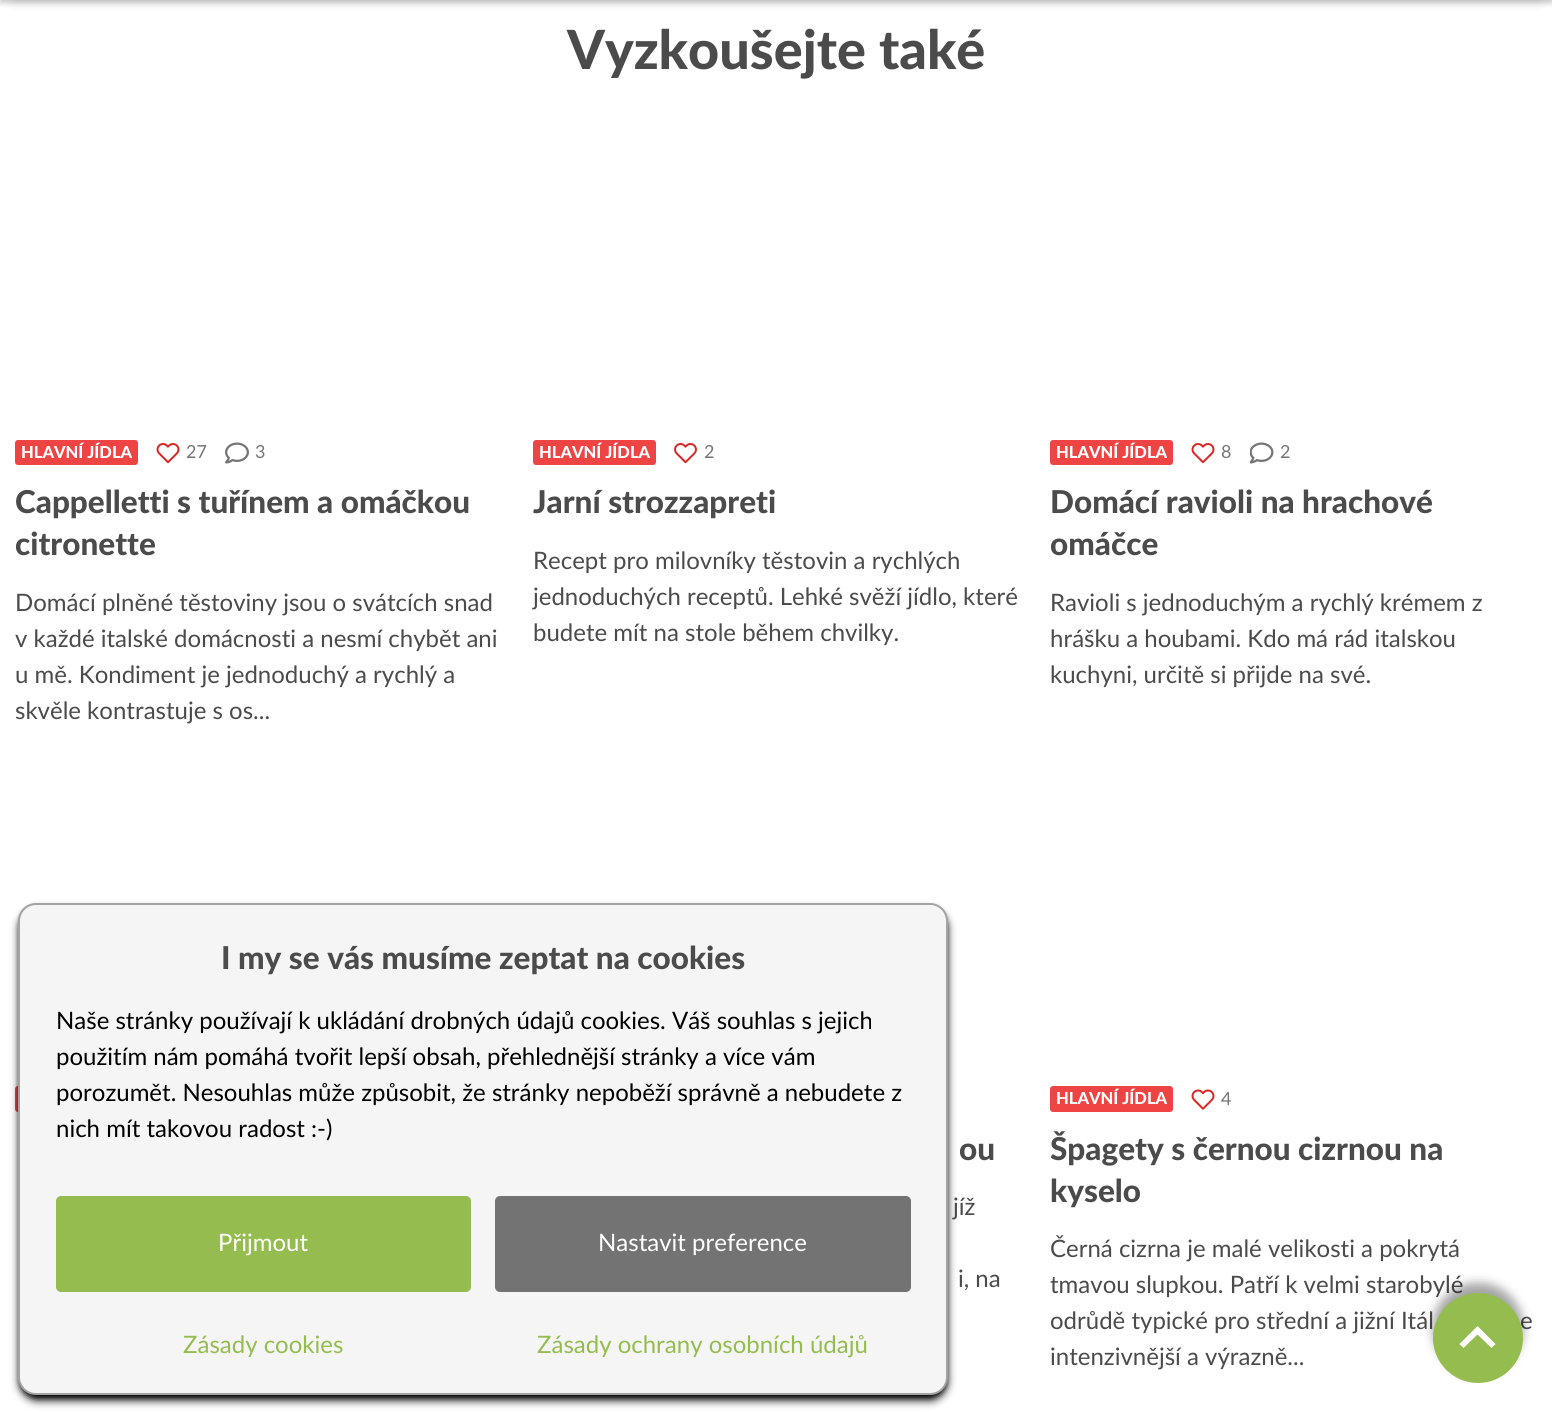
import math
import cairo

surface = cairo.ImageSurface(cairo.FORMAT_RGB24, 1552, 1412)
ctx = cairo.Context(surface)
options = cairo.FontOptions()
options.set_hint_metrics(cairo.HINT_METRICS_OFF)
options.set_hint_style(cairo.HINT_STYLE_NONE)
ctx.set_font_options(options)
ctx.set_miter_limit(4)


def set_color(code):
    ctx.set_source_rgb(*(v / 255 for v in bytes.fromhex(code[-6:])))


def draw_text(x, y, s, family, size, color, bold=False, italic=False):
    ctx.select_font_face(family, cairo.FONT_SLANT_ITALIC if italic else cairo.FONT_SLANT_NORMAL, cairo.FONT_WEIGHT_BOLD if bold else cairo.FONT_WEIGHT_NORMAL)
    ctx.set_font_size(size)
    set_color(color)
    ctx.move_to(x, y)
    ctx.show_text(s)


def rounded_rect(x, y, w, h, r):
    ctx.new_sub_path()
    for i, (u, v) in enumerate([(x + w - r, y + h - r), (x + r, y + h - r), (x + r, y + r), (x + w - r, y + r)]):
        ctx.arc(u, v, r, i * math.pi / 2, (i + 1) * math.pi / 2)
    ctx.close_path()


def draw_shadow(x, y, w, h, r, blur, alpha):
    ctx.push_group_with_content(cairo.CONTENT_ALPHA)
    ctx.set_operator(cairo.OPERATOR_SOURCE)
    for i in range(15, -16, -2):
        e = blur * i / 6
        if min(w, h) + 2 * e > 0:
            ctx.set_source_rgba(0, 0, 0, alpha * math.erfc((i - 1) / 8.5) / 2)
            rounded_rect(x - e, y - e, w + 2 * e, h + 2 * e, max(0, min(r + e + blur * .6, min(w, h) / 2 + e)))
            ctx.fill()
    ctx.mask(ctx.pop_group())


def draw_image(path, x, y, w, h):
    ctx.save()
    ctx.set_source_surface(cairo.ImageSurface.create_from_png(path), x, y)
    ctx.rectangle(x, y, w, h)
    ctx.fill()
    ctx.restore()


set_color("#ffffff")
ctx.paint()
set_color("#000000")
draw_shadow(14, -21, 1525, 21, 0, 7, 0.13)
draw_shadow(0, -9, 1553, 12, 0, 3, 0.21)
draw_text(567, 69, "Vyzkoušejte také", "Lato Black", 54, "#4b4b4b")
set_color("#ef4444")
rounded_rect(15, 440, 123, 25, 3)
ctx.fill()
draw_text(21, 458, "HLAVNÍ JÍDLA", "Lato Black", 16.5, "#ffffff")
draw_image("assets/img1.png", 156, 443, 24, 21)
draw_text(186, 458, "27", "Lato", 18, "#757575")
draw_image("assets/img2.png", 225, 442, 24, 22)
draw_text(255, 458, "3", "Lato", 18, "#757575")
draw_text(15, 513, "Cappelletti s tuřínem a omáčkou", "Lato Black", 31.5, "#4b4b4b")
draw_text(15, 555, "citronette", "Lato Black", 31.5, "#4b4b4b")
draw_text(15, 611, "Domácí plněné těstoviny jsou o svátcích snad", "Lato", 24, "#4b4b4b")
draw_text(15, 647, "v každé italské domácnosti a nesmí chybět ani", "Lato", 24, "#4b4b4b")
draw_text(15, 683, "u mě. Kondiment je jednoduchý a rychlý a", "Lato", 24, "#4b4b4b")
draw_text(15, 719, "skvěle kontrastuje s os...", "Lato", 24, "#4b4b4b")
set_color("#ef4444")
rounded_rect(533, 440, 123, 25, 3)
ctx.fill()
draw_text(539, 458, "HLAVNÍ JÍDLA", "Lato Black", 16.5, "#ffffff")
draw_image("assets/img3.png", 674, 443, 23, 21)
draw_text(704, 458, "2", "Lato", 18, "#757575")
draw_text(533, 513, "Jarní strozzapreti", "Lato Black", 31.5, "#4b4b4b")
draw_text(533, 569, "Recept pro milovníky těstovin a rychlých", "Lato", 24, "#4b4b4b")
draw_text(533, 605, "jednoduchých receptů. Lehké svěží jídlo, které", "Lato", 24, "#4b4b4b")
draw_text(533, 641, "budete mít na stole během chvilky.", "Lato", 24, "#4b4b4b")
set_color("#ef4444")
rounded_rect(1050, 440, 123, 25, 3)
ctx.fill()
draw_text(1056, 458, "HLAVNÍ JÍDLA", "Lato Black", 16.5, "#ffffff")
draw_image("assets/img1.png", 1191, 443, 24, 21)
draw_text(1221, 458, "8", "Lato", 18, "#757575")
draw_image("assets/img4.png", 1250, 442, 24, 22)
draw_text(1280, 458, "2", "Lato", 18, "#757575")
draw_text(1050, 513, "Domácí ravioli na hrachové", "Lato Black", 31.5, "#4b4b4b")
draw_text(1050, 555, "omáčce", "Lato Black", 31.5, "#4b4b4b")
draw_text(1050, 611, "Ravioli s jednoduchým a rychlý krémem z", "Lato", 24, "#4b4b4b")
draw_text(1050, 647, "hrášku a houbami. Kdo má rád italskou", "Lato", 24, "#4b4b4b")
draw_text(1050, 683, "kuchyni, určitě si přijde na své.", "Lato", 24, "#4b4b4b")
set_color("#ef4444")
rounded_rect(15, 1086, 123, 26, 3)
ctx.fill()
draw_text(959, 1160, "ou", "Lato Black", 31.5, "#4b4b4b")
draw_text(953, 1215, "jíž", "Lato", 24, "#4b4b4b")
draw_text(958, 1287, "i, na", "Lato", 24, "#4b4b4b")
set_color("#ef4444")
rounded_rect(1050, 1086, 123, 26, 3)
ctx.fill()
draw_text(1056, 1104, "HLAVNÍ JÍDLA", "Lato Black", 16.5, "#ffffff")
draw_image("assets/img5.png", 1191, 1089, 24, 21)
draw_text(1221, 1105, "4", "Lato", 18, "#757575")
draw_text(1050, 1160, "Špagety s černou cizrnou na", "Lato Black", 31.5, "#4b4b4b")
draw_text(1050, 1202, "kyselo", "Lato Black", 31.5, "#4b4b4b")
draw_text(1050, 1257, "Černá cizrna je malé velikosti a pokrytá", "Lato", 24, "#4b4b4b")
draw_text(1050, 1293, "tmavou slupkou. Patří k velmi starobylé", "Lato", 24, "#4b4b4b")
draw_text(1050, 1329, "odrůdě typické pro střední a jižní Itál", "Lato", 24, "#4b4b4b")
draw_text(1520, 1329, "e", "Lato", 24, "#4b4b4b")
draw_text(1050, 1365, "intenzivnější a výrazně...", "Lato", 24, "#4b4b4b")
set_color("#000000")
draw_shadow(21, 909, 924, 486, 15, 3, 1)
draw_shadow(20, 911, 927, 489, 17, 4.5, 1)
set_color("#f5f5f5")
rounded_rect(19, 904, 928, 490, 17)
ctx.fill_preserve()
set_color("#a3a3a3")
ctx.stroke()
draw_text(221, 969, "I my se vás musíme zeptat na cookies", "Lato Black", 31.5, "#4b4b4b")
draw_text(56, 1029, "Naše stránky používají k ukládání drobných údajů cookies. Váš souhlas s jejich", "Lato", 24, "#000000")
draw_text(56, 1065, "použitím nám pomáhá tvořit lepší obsah, přehlednější stránky a více vám", "Lato", 24, "#000000")
draw_text(56, 1101, "porozumět. Nesouhlas může způsobit, že stránky nepoběží správně a nebudete z", "Lato", 24, "#000000")
draw_text(56, 1137, "nich mít takovou radost :-)", "Lato", 24, "#000000")
set_color("#95bc4e")
rounded_rect(56, 1196, 415, 96, 5)
ctx.fill()
draw_text(218, 1251, "Přijmout", "Lato", 24, "#ffffff")
set_color("#737373")
rounded_rect(495, 1196, 416, 96, 5)
ctx.fill()
draw_text(598, 1251, "Nastavit preference", "Lato", 24, "#ffffff")
draw_text(183, 1353, "Zásady cookies", "Lato", 24, "#95bc4e")
draw_text(537, 1353, "Zásady ochrany osobních údajů", "Lato", 24, "#95bc4e")
set_color("#000000")
draw_shadow(1433, 1283, 90, 90, 45, 5, 0.36)
set_color("#95bc4e")
ctx.arc(1478, 1338, 45, 0, 2 * math.pi)
ctx.fill()
set_color("#ffffff")
ctx.new_path()
ctx.move_to(1463.5, 1348)
ctx.line_to(1477.5, 1334.5)
ctx.line_to(1491.5, 1348)
ctx.line_to(1495.5, 1344)
ctx.line_to(1477.5, 1326)
ctx.line_to(1459.5, 1344)
ctx.close_path()
ctx.fill()
surface.write_to_png("output.png")
